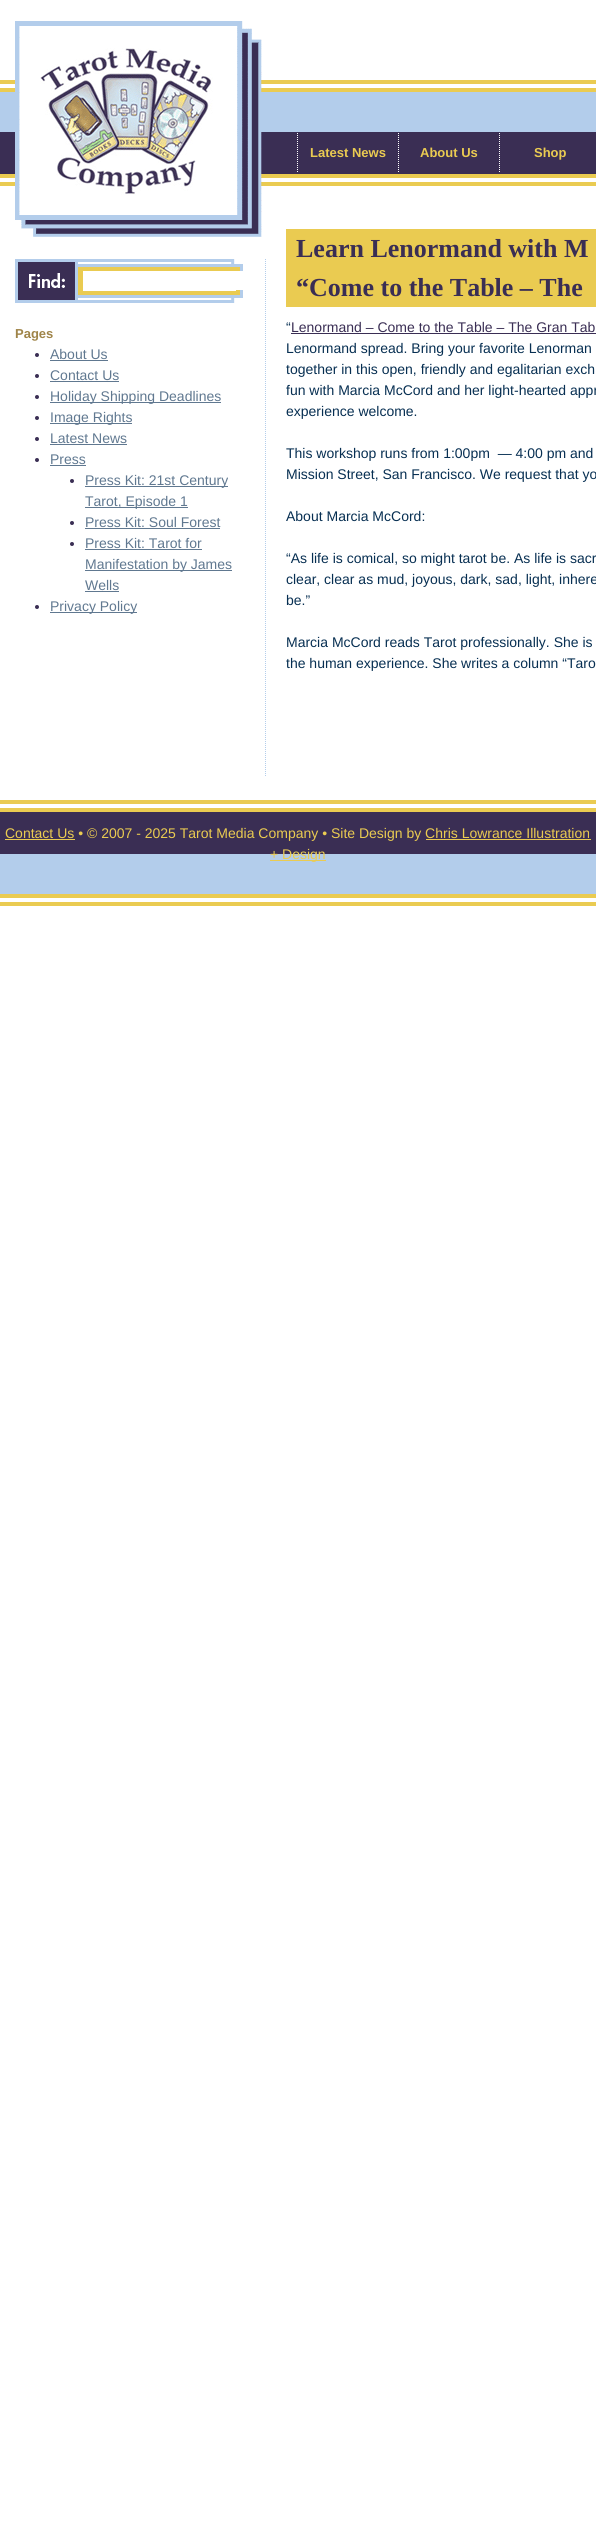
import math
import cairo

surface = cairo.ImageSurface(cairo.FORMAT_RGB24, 596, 2529)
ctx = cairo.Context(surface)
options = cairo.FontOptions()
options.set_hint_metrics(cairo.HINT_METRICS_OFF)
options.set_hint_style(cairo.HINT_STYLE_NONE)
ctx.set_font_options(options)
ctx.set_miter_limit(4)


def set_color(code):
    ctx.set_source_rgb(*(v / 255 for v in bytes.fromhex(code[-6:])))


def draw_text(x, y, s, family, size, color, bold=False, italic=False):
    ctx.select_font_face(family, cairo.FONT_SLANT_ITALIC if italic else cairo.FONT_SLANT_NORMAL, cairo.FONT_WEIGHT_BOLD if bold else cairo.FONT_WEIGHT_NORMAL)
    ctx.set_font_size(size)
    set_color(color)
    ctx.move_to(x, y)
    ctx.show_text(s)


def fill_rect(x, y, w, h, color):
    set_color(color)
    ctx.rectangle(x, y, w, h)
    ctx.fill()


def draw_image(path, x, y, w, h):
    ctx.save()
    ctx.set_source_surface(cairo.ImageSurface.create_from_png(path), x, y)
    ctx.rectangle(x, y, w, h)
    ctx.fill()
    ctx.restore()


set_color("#ffffff")
ctx.paint()
draw_image("assets/img1.png", 0, 80, 596, 106)
draw_image("assets/img2.png", 15, 21, 247, 216)
ctx.new_path()
ctx.move_to(297.5, 133)
ctx.line_to(297.5, 173)
set_color("#ffffff")
ctx.set_line_width(1)
ctx.set_dash([1, 1])
ctx.stroke()
draw_text(310, 157, "Latest News", "Liberation Sans", 13, "#eacb51", bold=True)
ctx.new_path()
ctx.move_to(398.5, 133)
ctx.line_to(398.5, 173)
set_color("#ffffff")
ctx.stroke()
draw_text(420, 157, "About Us", "Liberation Sans", 13, "#eacb51", bold=True)
ctx.new_path()
ctx.move_to(499.5, 133)
ctx.line_to(499.5, 173)
set_color("#ffffff")
ctx.stroke()
draw_text(534, 157, "Shop", "Liberation Sans", 13, "#eacb51", bold=True)
draw_image("assets/img3.png", 15, 259, 228, 44)
fill_rect(236, 271, 7, 19, "#ffffff")
draw_text(15, 338, "Pages", "Liberation Sans", 13, "#9f8448", bold=True)
set_color("#3a2e54")
ctx.new_path()
ctx.arc(37, 355, 2, 0, 2 * math.pi)
ctx.fill()
draw_text(50, 359, "About Us", "Liberation Sans", 14, "#607890")
fill_rect(50, 360, 58, 1, "#607890")
set_color("#3a2e54")
ctx.new_path()
ctx.arc(37, 376, 2, 0, 2 * math.pi)
ctx.fill()
draw_text(50, 380, "Contact Us", "Liberation Sans", 14, "#607890")
fill_rect(50, 381, 69, 1, "#607890")
set_color("#3a2e54")
ctx.new_path()
ctx.arc(37, 397, 2, 0, 2 * math.pi)
ctx.fill()
fill_rect(50, 402, 171, 1, "#607890")
draw_text(50, 401, "Holiday Shipping Deadlines", "Liberation Sans", 14, "#607890")
set_color("#3a2e54")
ctx.new_path()
ctx.arc(37, 418, 2, 0, 2 * math.pi)
ctx.fill()
fill_rect(50, 423, 82, 1, "#607890")
draw_text(50, 422, "Image Rights", "Liberation Sans", 14, "#607890")
set_color("#3a2e54")
ctx.new_path()
ctx.arc(37, 439, 2, 0, 2 * math.pi)
ctx.fill()
draw_text(50, 443, "Latest News", "Liberation Sans", 14, "#607890")
fill_rect(50, 444, 77, 1, "#607890")
set_color("#3a2e54")
ctx.new_path()
ctx.arc(37, 460, 2, 0, 2 * math.pi)
ctx.fill()
draw_text(50, 464, "Press", "Liberation Sans", 14, "#607890")
fill_rect(50, 465, 36, 1, "#607890")
set_color("#3a2e54")
ctx.new_path()
ctx.arc(72, 481, 2, 0, 2 * math.pi)
ctx.fill()
fill_rect(85, 486, 143, 1, "#607890")
draw_text(85, 485, "Press Kit: 21st Century", "Liberation Sans", 14, "#607890")
fill_rect(85, 507, 103, 1, "#607890")
draw_text(85, 506, "Tarot, Episode 1", "Liberation Sans", 14, "#607890")
set_color("#3a2e54")
ctx.new_path()
ctx.arc(72, 523, 2, 0, 2 * math.pi)
ctx.fill()
draw_text(85, 527, "Press Kit: Soul Forest", "Liberation Sans", 14, "#607890")
fill_rect(85, 528, 135, 1, "#607890")
set_color("#3a2e54")
ctx.new_path()
ctx.arc(72, 544, 2, 0, 2 * math.pi)
ctx.fill()
draw_text(85, 548, "Press Kit: Tarot for", "Liberation Sans", 14, "#607890")
fill_rect(85, 549, 117, 1, "#607890")
fill_rect(85, 570, 147, 1, "#607890")
draw_text(85, 569, "Manifestation by James", "Liberation Sans", 14, "#607890")
draw_text(85, 590, "Wells", "Liberation Sans", 14, "#607890")
fill_rect(85, 591, 34, 1, "#607890")
set_color("#3a2e54")
ctx.new_path()
ctx.arc(37, 607, 2, 0, 2 * math.pi)
ctx.fill()
fill_rect(50, 612, 87, 1, "#607890")
draw_text(50, 611, "Privacy Policy", "Liberation Sans", 14, "#607890")
ctx.new_path()
ctx.move_to(265.5, 259)
ctx.line_to(265.5, 777)
set_color("#b3cdeb")
ctx.stroke()
fill_rect(286, 229, 310, 78, "#eacb51")
draw_text(296, 257, "Learn Lenormand with M", "Liberation Serif", 26, "#3a2e54", bold=True)
draw_text(296, 296, "“Come to the Table – The", "Liberation Serif", 26, "#3a2e54", bold=True)
draw_text(286, 332, "“", "Liberation Sans", 14, "#072f52")
draw_text(291, 332, "Lenormand – Come to the Table – The Gran Tab", "Liberation Sans", 14, "#3a2e54")
fill_rect(291, 333, 305, 1, "#3a2e54")
draw_text(286, 353, "Lenormand spread. Bring your favorite Lenorman", "Liberation Sans", 14, "#072f52")
draw_text(286, 374, "together in this open, friendly and egalitarian exch", "Liberation Sans", 14, "#072f52")
draw_text(286, 395, "fun with Marcia McCord and her light-hearted appr", "Liberation Sans", 14, "#072f52")
draw_text(286, 416, "experience welcome.", "Liberation Sans", 14, "#072f52")
draw_text(286, 458, "This workshop runs from 1:00pm  — 4:00 pm and", "Liberation Sans", 14, "#072f52")
draw_text(286, 479, "Mission Street, San Francisco. We request that yo", "Liberation Sans", 14, "#072f52")
draw_text(286, 521, "About Marcia McCord:", "Liberation Sans", 14, "#072f52")
draw_text(286, 563, "“As life is comical, so might tarot be. As life is sacr", "Liberation Sans", 14, "#072f52")
draw_text(286, 584, "clear, clear as mud, joyous, dark, sad, light, inhere", "Liberation Sans", 14, "#072f52")
draw_text(286, 605, "be.”", "Liberation Sans", 14, "#072f52")
draw_text(286, 647, "Marcia McCord reads Tarot professionally. She is", "Liberation Sans", 14, "#072f52")
draw_text(286, 668, "the human experience. She writes a column “Taro", "Liberation Sans", 14, "#072f52")
draw_image("assets/img4.png", 0, 800, 596, 106)
fill_rect(5, 839, 70, 1, "#eacb51")
draw_text(5, 838, "Contact Us • © 2007 - 2025 Tarot Media Company • Site Design by Chris Lowrance Illustration", "Liberation Sans", 14, "#eacb51")
fill_rect(270, 860, 56, 1, "#eacb51")
draw_text(270, 859, "+ Design", "Liberation Sans", 14, "#eacb51")
fill_rect(426, 839, 165, 1, "#eacb51")
surface.write_to_png("output.png")
